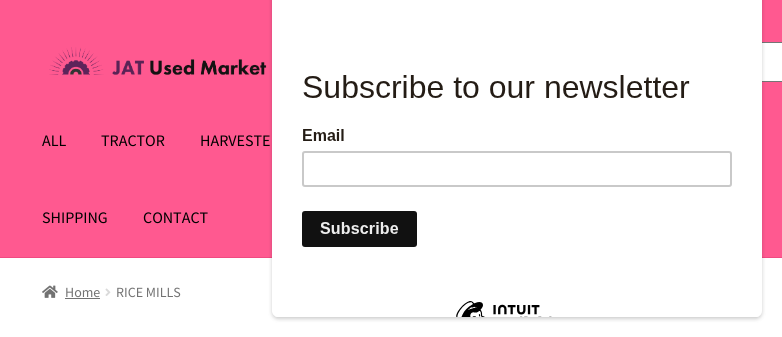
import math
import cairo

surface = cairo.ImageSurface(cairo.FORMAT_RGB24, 782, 337)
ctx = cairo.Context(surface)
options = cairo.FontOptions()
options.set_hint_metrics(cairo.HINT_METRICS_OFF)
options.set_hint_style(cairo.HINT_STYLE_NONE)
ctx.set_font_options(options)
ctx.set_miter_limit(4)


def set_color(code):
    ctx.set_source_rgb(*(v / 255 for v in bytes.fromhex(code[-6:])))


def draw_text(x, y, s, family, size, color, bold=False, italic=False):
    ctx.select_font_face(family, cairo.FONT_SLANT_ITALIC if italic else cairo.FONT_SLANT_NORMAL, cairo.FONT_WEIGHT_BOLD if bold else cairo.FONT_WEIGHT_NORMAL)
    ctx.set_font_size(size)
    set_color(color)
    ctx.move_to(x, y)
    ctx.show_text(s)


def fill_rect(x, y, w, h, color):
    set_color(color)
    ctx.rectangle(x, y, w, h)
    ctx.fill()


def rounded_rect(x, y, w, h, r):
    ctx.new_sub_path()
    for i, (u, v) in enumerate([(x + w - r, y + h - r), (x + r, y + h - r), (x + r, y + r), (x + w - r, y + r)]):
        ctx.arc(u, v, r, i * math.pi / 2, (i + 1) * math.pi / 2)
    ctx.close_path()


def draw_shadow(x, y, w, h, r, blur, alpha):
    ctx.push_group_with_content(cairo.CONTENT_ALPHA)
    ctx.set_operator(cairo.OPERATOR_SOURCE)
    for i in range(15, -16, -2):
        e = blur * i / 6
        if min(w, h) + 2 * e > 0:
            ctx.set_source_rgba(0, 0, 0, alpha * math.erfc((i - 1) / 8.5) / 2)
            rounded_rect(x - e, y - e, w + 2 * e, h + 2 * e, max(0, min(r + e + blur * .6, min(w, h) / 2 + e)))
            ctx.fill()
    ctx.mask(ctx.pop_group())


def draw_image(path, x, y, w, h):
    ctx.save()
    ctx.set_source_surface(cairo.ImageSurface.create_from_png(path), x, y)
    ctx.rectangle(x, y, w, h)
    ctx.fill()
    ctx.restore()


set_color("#ffffff")
ctx.paint()
fill_rect(0, 0, 782, 257, "#ff5990")
fill_rect(0, 257, 782, 1, "#f04a81")
draw_image("assets/img1.png", 49, 47, 218, 28)
fill_rect(762, 43, 20, 38, "#ffffff")
ctx.rectangle(588.5, 42.5, 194, 39)
set_color("#757575")
ctx.set_line_width(1)
ctx.stroke()
draw_text(42, 146, "ALL", "Source Sans Pro", 16, "#000000")
draw_text(101, 146, "TRACTOR", "Source Sans Pro", 16, "#000000")
draw_text(200, 146, "HARVESTE", "Source Sans Pro", 16, "#000000")
draw_text(42, 223, "SHIPPING", "Source Sans Pro", 16, "#000000")
draw_text(143, 223, "CONTACT", "Source Sans Pro", 16, "#000000")
draw_image("assets/img2.png", 42, 285, 16, 13)
draw_text(65, 297, "Home", "Source Sans Pro", 14, "#727272")
fill_rect(65, 298, 35, 1, "#727272")
draw_image("assets/img3.png", 105, 288, 6, 8)
draw_text(116, 297, "RICE MILLS", "Source Sans Pro", 14, "#727272")
set_color("#000000")
draw_shadow(272, -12, 490, 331, 6, 2, 0.2)
set_color("#ffffff")
rounded_rect(272, -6, 490, 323, 6)
ctx.fill()
draw_image("assets/img4.png", 275, 75, 484, 242)
surface.write_to_png("output.png")
